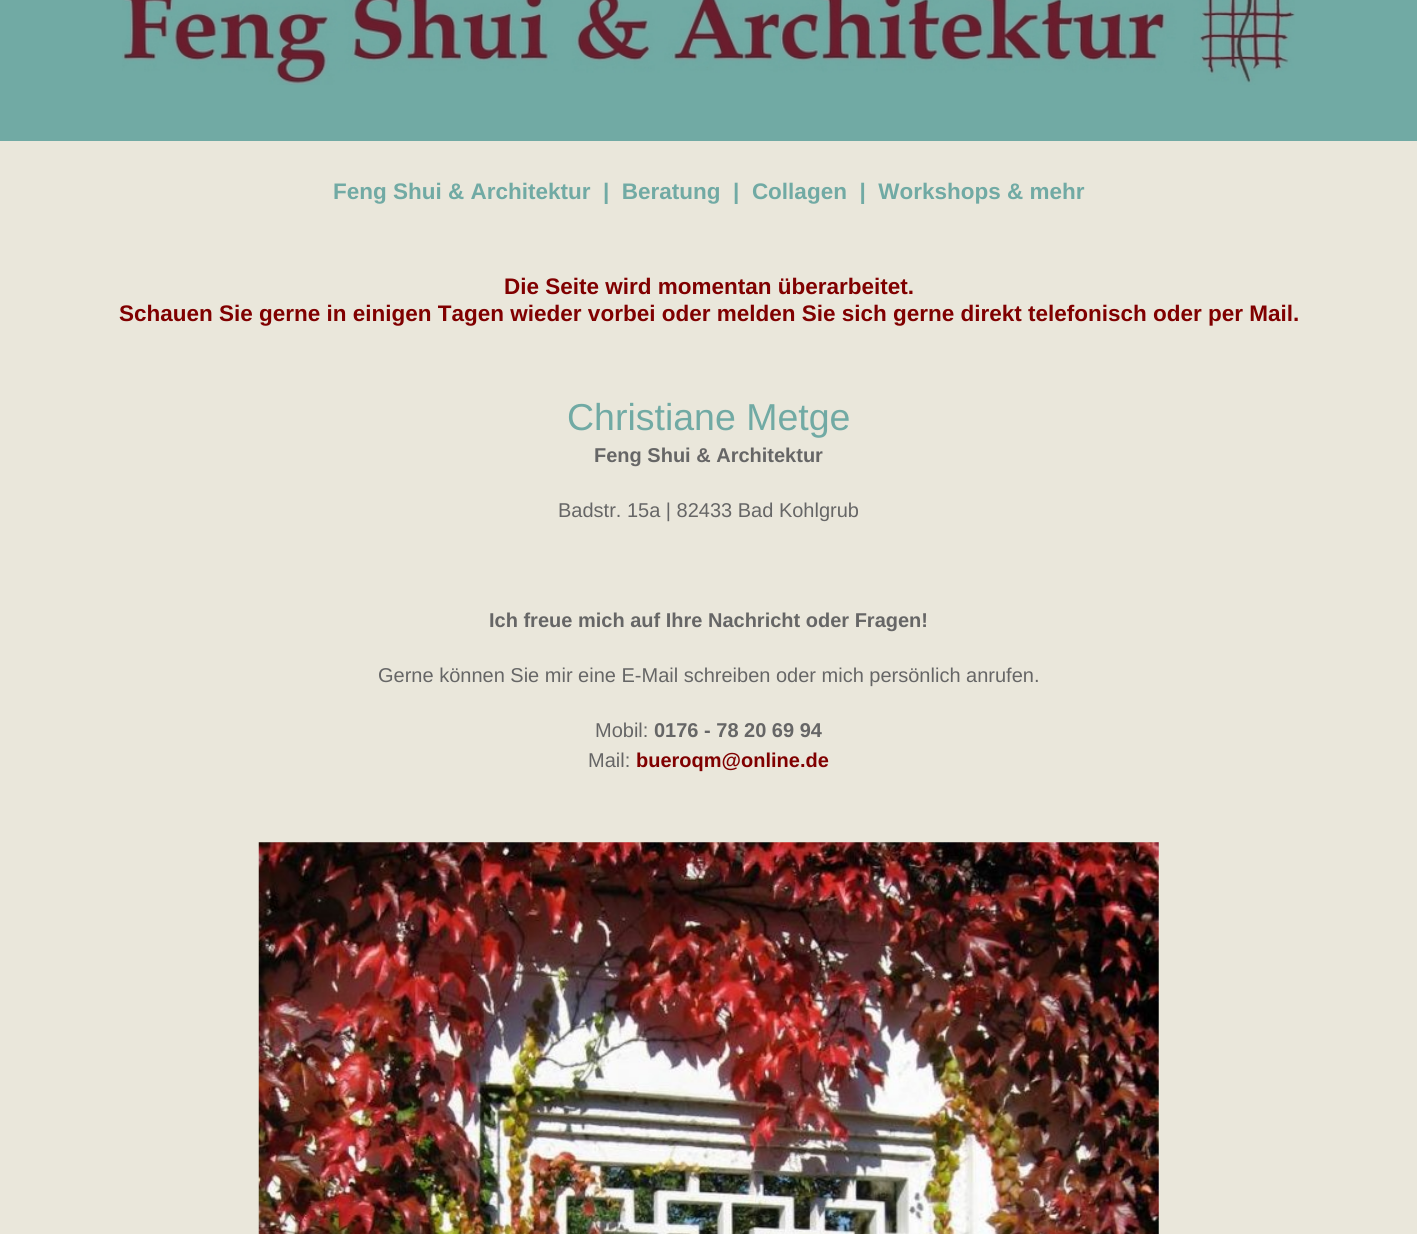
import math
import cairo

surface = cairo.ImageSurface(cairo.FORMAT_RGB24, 1417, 1234)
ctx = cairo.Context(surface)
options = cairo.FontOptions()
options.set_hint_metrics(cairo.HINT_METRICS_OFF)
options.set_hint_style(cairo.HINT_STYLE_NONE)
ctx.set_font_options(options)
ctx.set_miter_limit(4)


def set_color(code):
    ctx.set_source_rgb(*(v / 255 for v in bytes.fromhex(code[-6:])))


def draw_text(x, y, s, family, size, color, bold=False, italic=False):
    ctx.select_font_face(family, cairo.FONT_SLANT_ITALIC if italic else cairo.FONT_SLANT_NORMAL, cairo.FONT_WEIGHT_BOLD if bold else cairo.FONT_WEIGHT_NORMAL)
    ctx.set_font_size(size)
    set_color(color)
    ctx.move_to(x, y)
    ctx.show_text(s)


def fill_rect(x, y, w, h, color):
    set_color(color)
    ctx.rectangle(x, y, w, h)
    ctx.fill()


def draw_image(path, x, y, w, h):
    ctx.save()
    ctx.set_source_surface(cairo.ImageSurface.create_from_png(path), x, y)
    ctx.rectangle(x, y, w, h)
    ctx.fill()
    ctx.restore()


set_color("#eae7db")
ctx.paint()
fill_rect(0, 0, 1417, 141, "#71aaa4")
draw_image("assets/img1.png", 122, 0, 1173, 85)
draw_text(333, 199, "Feng Shui & Architektur  |  Beratung  |  Collagen  |  Workshops & mehr", "Liberation Sans", 22.5, "#71aaa4", bold=True)
draw_text(504, 294, "Die Seite wird momentan überarbeitet.", "Liberation Sans", 22.5, "#800000", bold=True)
draw_text(119, 321, "Schauen Sie gerne in einigen Tagen wieder vorbei oder melden Sie sich gerne direkt telefonisch oder per Mail.", "Liberation Sans", 22.5, "#800000", bold=True)
draw_text(567, 430, "Christiane Metge", "Liberation Sans", 37.5, "#71aaa4")
draw_text(594, 462, "Feng Shui & Architektur", "Liberation Sans", 20, "#666666", bold=True)
draw_text(558, 517, "Badstr. 15a | 82433 Bad Kohlgrub", "Liberation Sans", 20, "#666666")
draw_text(489, 627, "Ich freue mich auf Ihre Nachricht oder Fragen!", "Liberation Sans", 20, "#666666", bold=True)
draw_text(378, 682, "Gerne können Sie mir eine E-Mail schreiben oder mich persönlich anrufen.", "Liberation Sans", 20, "#666666")
draw_text(595, 737, "Mobil:", "Liberation Sans", 20, "#666666")
draw_text(654, 737, "0176 - 78 20 69 94", "Liberation Sans", 20, "#666666", bold=True)
draw_text(588, 767, "Mail:", "Liberation Sans", 20, "#666666")
draw_text(636, 767, "bueroqm@online.de", "Liberation Sans", 20, "#800000", bold=True)
draw_image("assets/img2.png", 258, 842, 901, 392)
surface.write_to_png("output.png")
